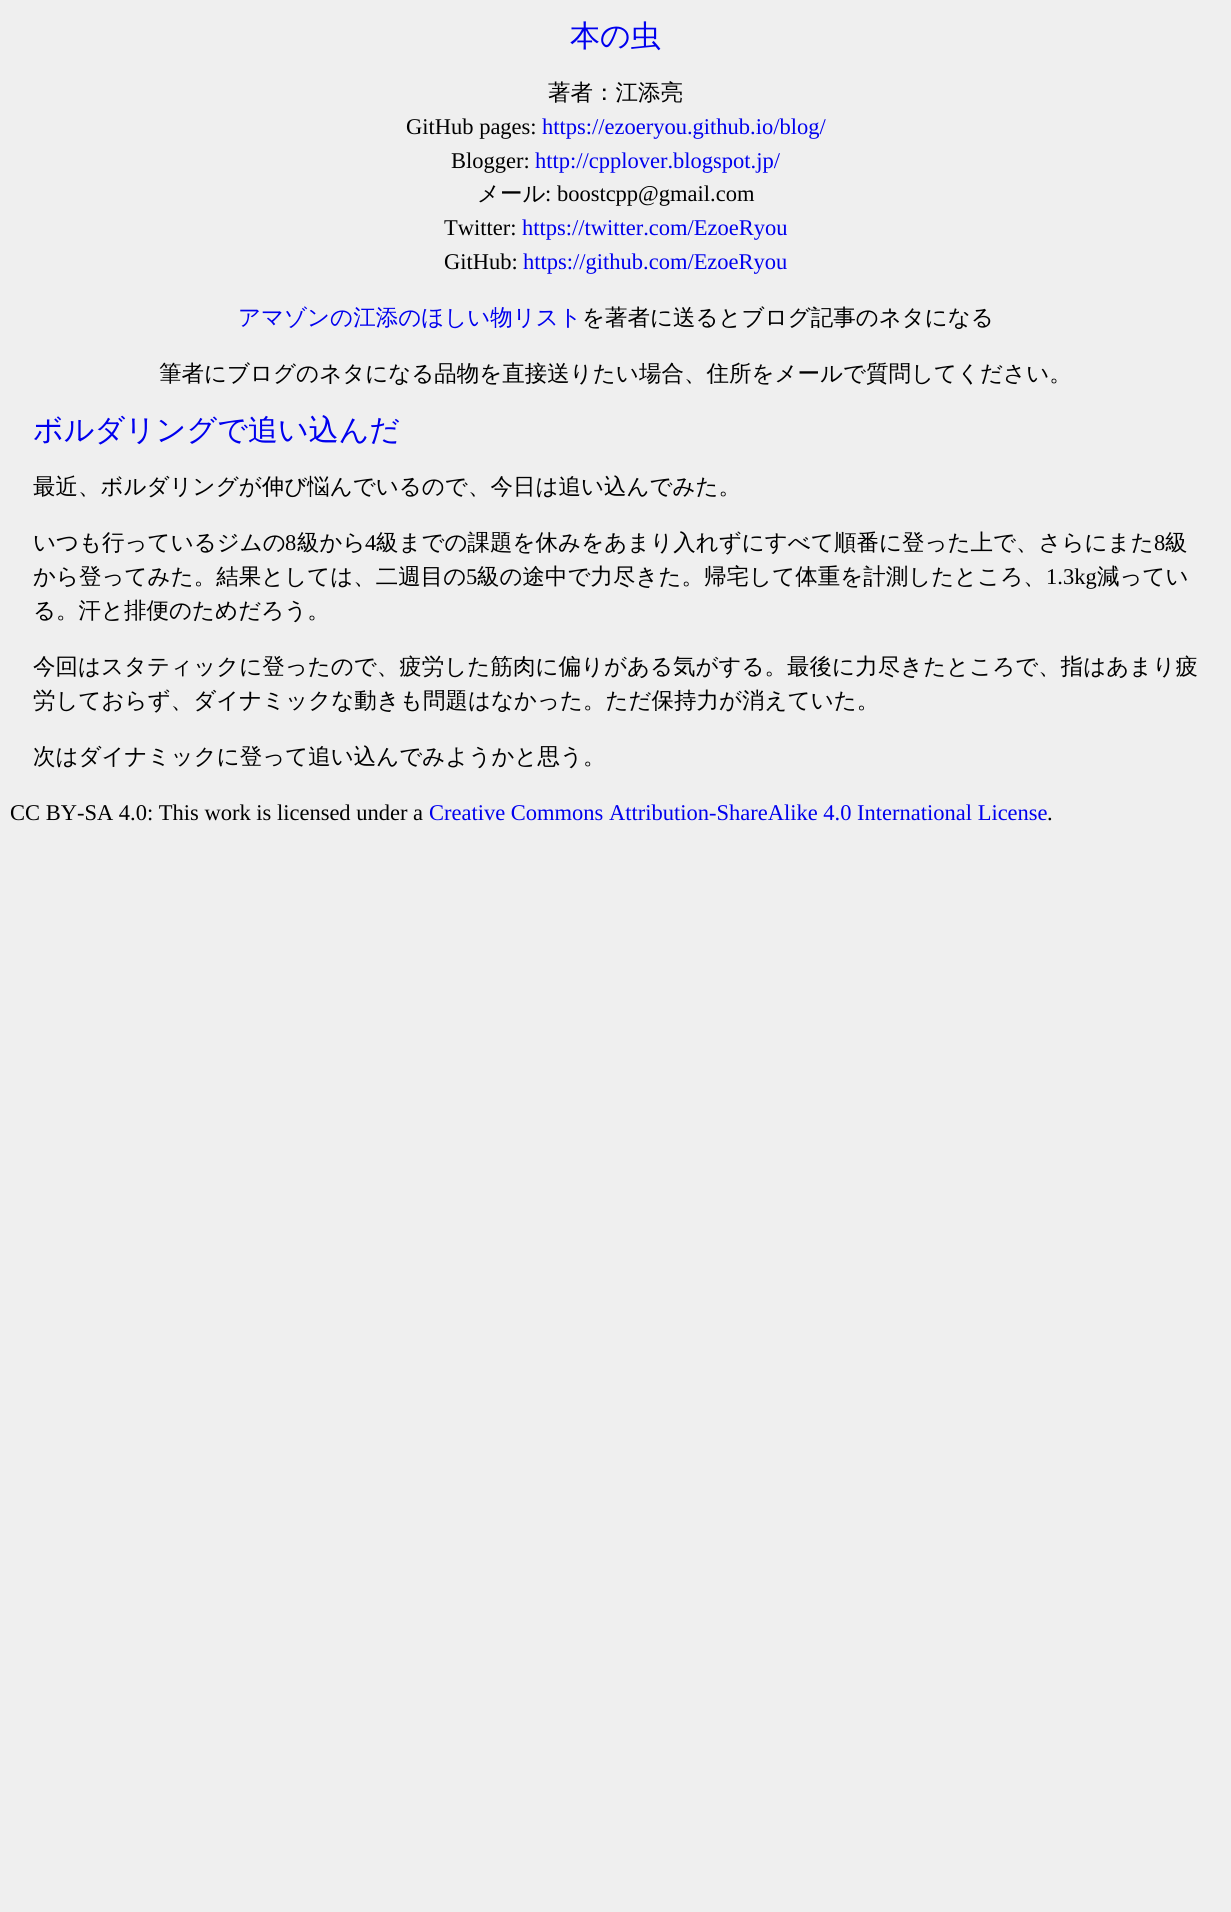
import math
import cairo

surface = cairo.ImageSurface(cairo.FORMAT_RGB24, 1231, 1912)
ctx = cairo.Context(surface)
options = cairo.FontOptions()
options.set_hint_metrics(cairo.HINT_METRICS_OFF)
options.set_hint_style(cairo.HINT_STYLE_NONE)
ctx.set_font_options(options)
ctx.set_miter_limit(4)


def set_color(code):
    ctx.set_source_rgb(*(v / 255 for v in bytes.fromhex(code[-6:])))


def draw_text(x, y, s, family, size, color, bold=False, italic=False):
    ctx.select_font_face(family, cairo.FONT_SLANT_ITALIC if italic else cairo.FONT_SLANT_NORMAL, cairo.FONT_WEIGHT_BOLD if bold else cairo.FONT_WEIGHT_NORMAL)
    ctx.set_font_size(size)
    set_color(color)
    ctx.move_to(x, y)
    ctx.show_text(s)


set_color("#efefef")
ctx.paint()
draw_text(570, 46, "本の虫", "WenQuanYi Zen Hei Medium", 30, "#0000ee")
draw_text(548, 100, "著者：江添亮", "WenQuanYi Zen Hei Medium", 22.5, "#000000")
draw_text(406, 134, "GitHub pages:", "Liberation Serif", 22.5, "#000000")
draw_text(542, 134, "https://ezoeryou.github.io/blog/", "Liberation Serif", 22.5, "#0000ee")
draw_text(451, 168, "Blogger:", "Liberation Serif", 22.5, "#000000")
draw_text(535, 168, "http://cpplover.blogspot.jp/", "Liberation Serif", 22.5, "#0000ee")
draw_text(477, 201, "メール", "WenQuanYi Zen Hei Medium", 22.5, "#000000")
draw_text(545, 201, ": boostcpp@gmail.com", "Liberation Serif", 22.5, "#000000")
draw_text(444, 235, "Twitter:", "Liberation Serif", 22.5, "#000000")
draw_text(522, 235, "https://twitter.com/EzoeRyou", "Liberation Serif", 22.5, "#0000ee")
draw_text(444, 269, "GitHub:", "Liberation Serif", 22.5, "#000000")
draw_text(523, 269, "https://github.com/EzoeRyou", "Liberation Serif", 22.5, "#0000ee")
draw_text(238, 325, "アマゾンの江添のほしい物リスト", "WenQuanYi Zen Hei Medium", 22.5, "#0000ee")
draw_text(582, 325, "を著者に送るとブログ記事のネタになる", "WenQuanYi Zen Hei Medium", 22.5, "#000000")
draw_text(159, 381, "筆者にブログのネタになる品物を直接送りたい場合、住所をメールで質問してください。", "WenQuanYi Zen Hei Medium", 22.5, "#000000")
draw_text(33, 440, "ボルダリングで追い込んだ", "WenQuanYi Zen Hei Medium", 30, "#0000ee")
draw_text(33, 494, "最近、ボルダリングが伸び悩んでいるので、今日は追い込んでみた。", "WenQuanYi Zen Hei Medium", 22.5, "#000000")
draw_text(33, 550, "いつも行っているジムの", "WenQuanYi Zen Hei Medium", 22.5, "#000000")
draw_text(285, 550, "8", "Liberation Serif", 22.5, "#000000")
draw_text(297, 550, "級から", "WenQuanYi Zen Hei Medium", 22.5, "#000000")
draw_text(365, 550, "4", "Liberation Serif", 22.5, "#000000")
draw_text(376, 550, "級までの課題を休みをあまり入れずにすべて順番に登った上で、さらにまた", "WenQuanYi Zen Hei Medium", 22.5, "#000000")
draw_text(1154, 550, "8", "Liberation Serif", 22.5, "#000000")
draw_text(1165, 550, "級", "WenQuanYi Zen Hei Medium", 22.5, "#000000")
draw_text(33, 584, "から登ってみた。結果としては、二週目の", "WenQuanYi Zen Hei Medium", 22.5, "#000000")
draw_text(466, 584, "5", "Liberation Serif", 22.5, "#000000")
draw_text(477, 584, "級の途中で力尽きた。帰宅して体重を計測したところ、", "WenQuanYi Zen Hei Medium", 22.5, "#000000")
draw_text(1046, 584, "1.3kg", "Liberation Serif", 22.5, "#000000")
draw_text(1097, 584, "減ってい", "WenQuanYi Zen Hei Medium", 22.5, "#000000")
draw_text(33, 618, "る。汗と排便のためだろう。", "WenQuanYi Zen Hei Medium", 22.5, "#000000")
draw_text(33, 674, "今回はスタティックに登ったので、疲労した筋肉に偏りがある気がする。最後に力尽きたところで、指はあまり疲", "WenQuanYi Zen Hei Medium", 22.5, "#000000")
draw_text(33, 708, "労しておらず、ダイナミックな動きも問題はなかった。ただ保持力が消えていた。", "WenQuanYi Zen Hei Medium", 22.5, "#000000")
draw_text(33, 764, "次はダイナミックに登って追い込んでみようかと思う。", "WenQuanYi Zen Hei Medium", 22.5, "#000000")
draw_text(10, 820, "CC BY-SA 4.0: This work is licensed under a", "Liberation Serif", 22.5, "#000000")
draw_text(429, 820, "Creative Commons Attribution-ShareAlike 4.0 International License", "Liberation Serif", 22.5, "#0000ee")
draw_text(1047, 820, ".", "Liberation Serif", 22.5, "#000000")
surface.write_to_png("output.png")
